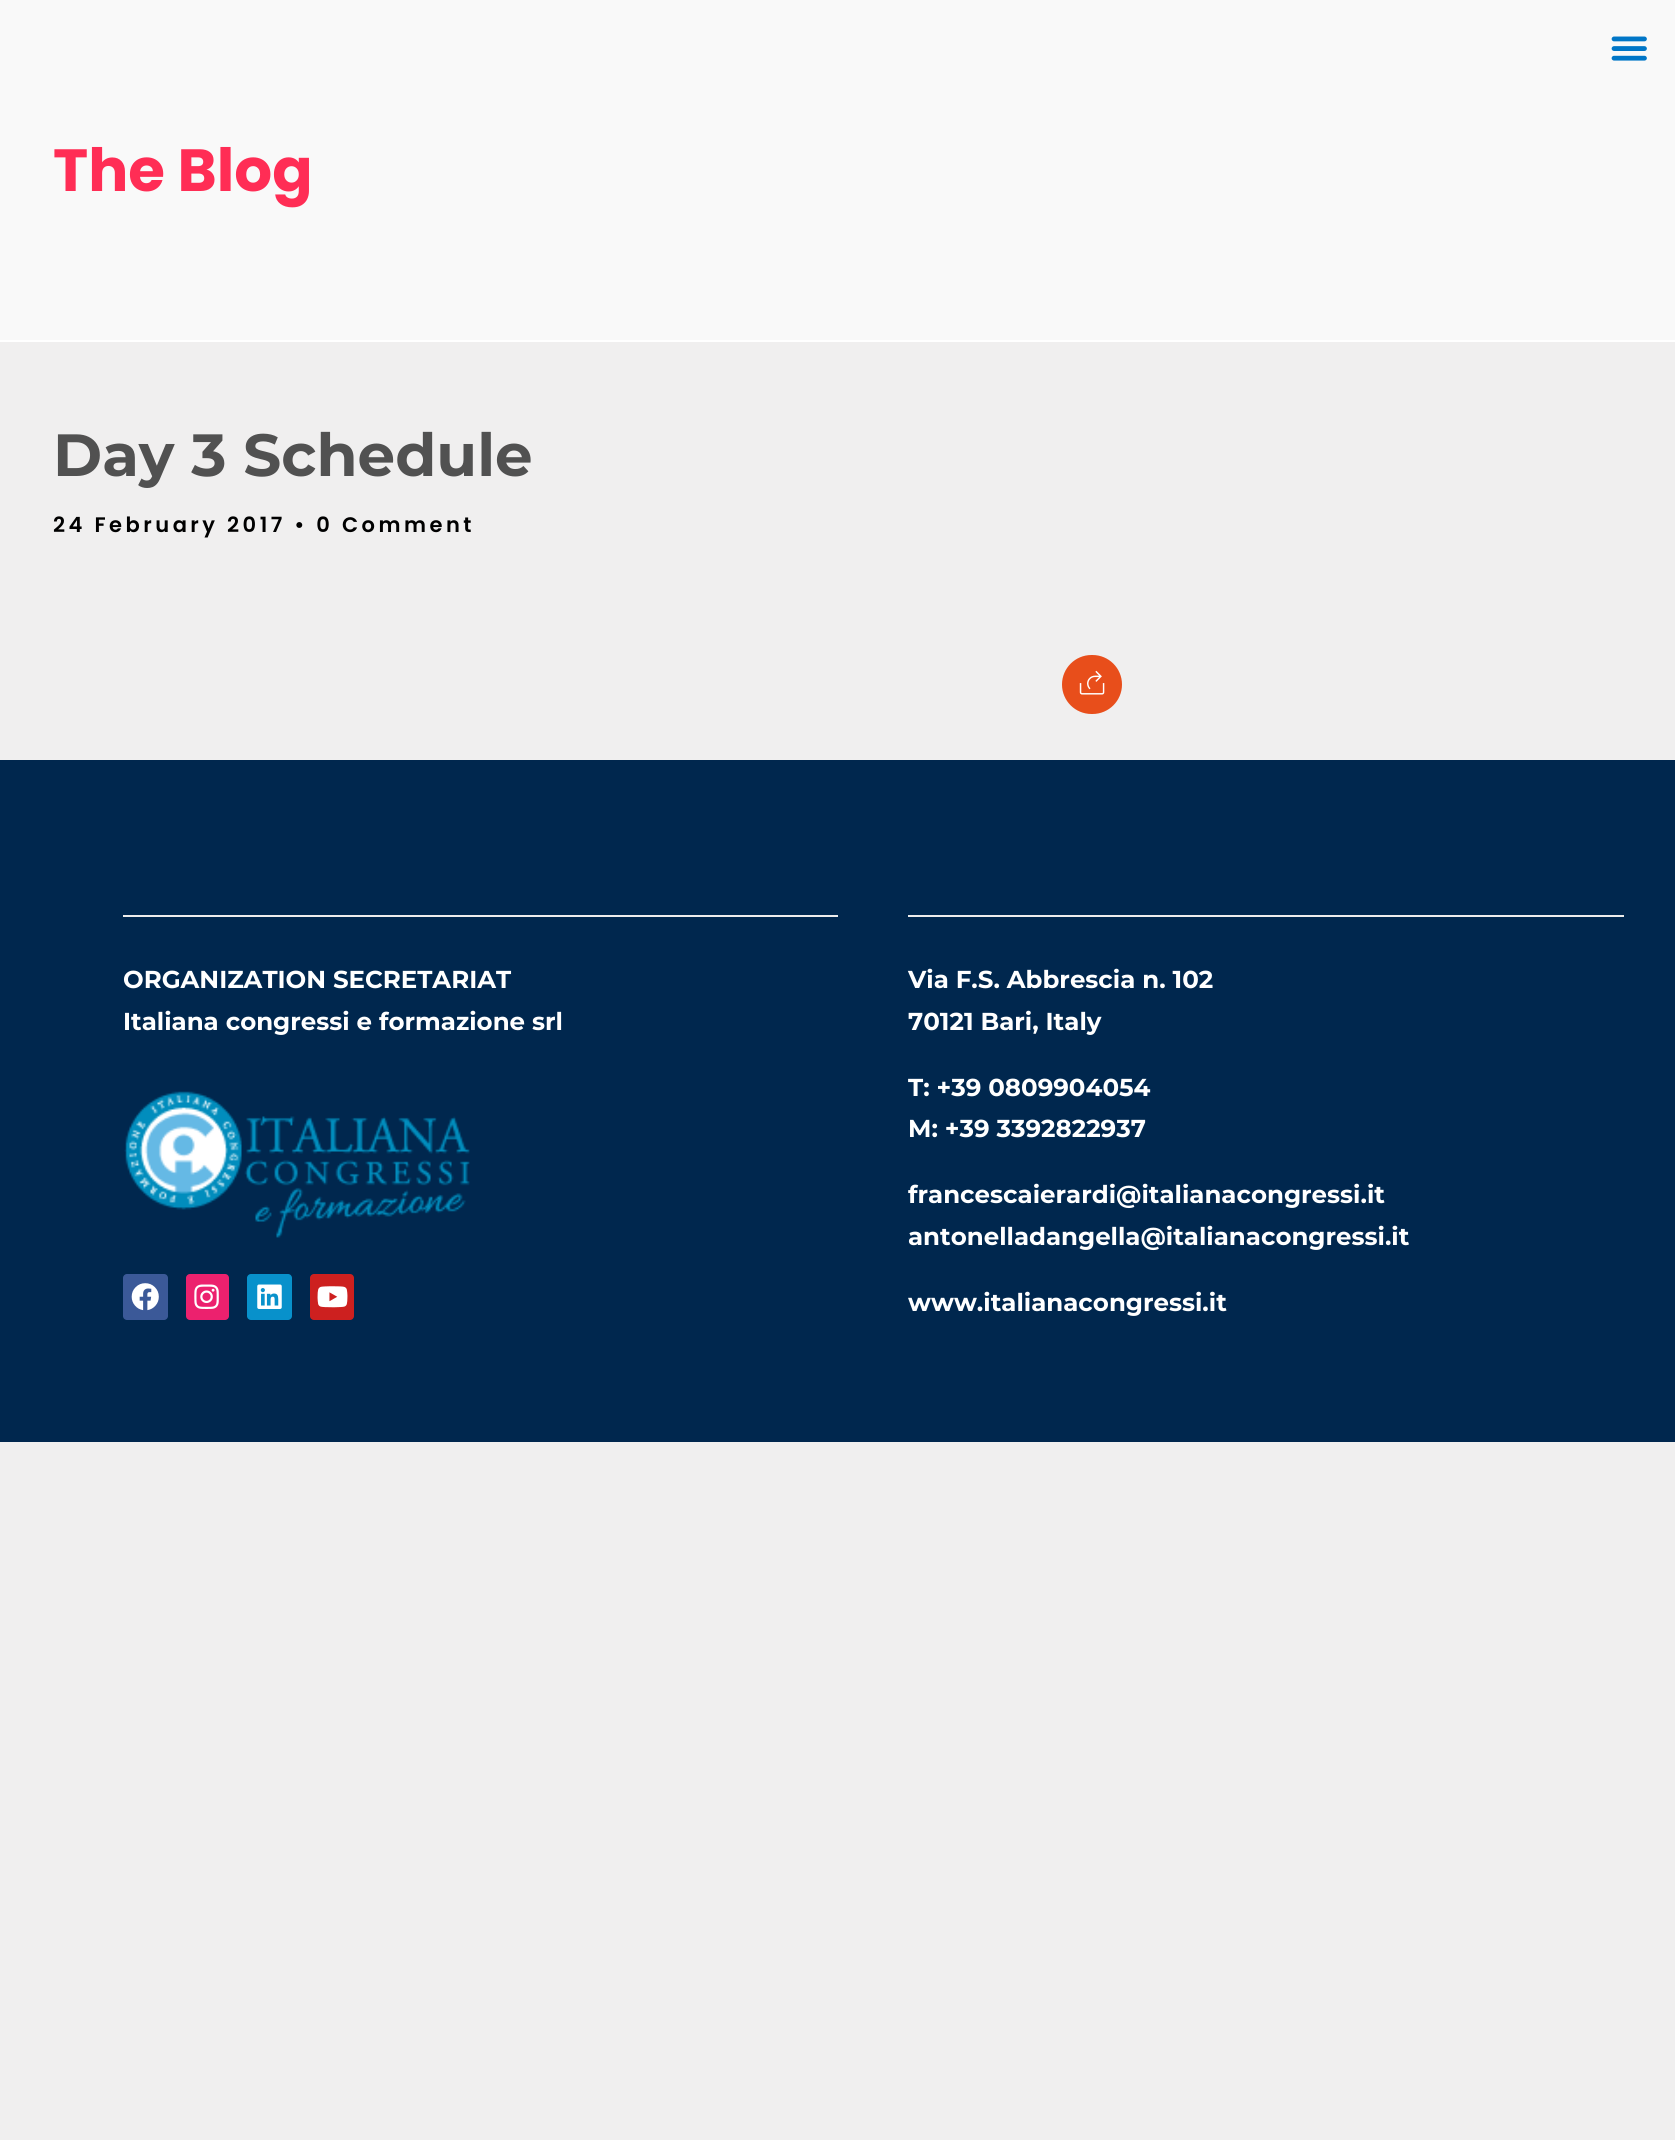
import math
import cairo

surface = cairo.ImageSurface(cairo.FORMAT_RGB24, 1675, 2140)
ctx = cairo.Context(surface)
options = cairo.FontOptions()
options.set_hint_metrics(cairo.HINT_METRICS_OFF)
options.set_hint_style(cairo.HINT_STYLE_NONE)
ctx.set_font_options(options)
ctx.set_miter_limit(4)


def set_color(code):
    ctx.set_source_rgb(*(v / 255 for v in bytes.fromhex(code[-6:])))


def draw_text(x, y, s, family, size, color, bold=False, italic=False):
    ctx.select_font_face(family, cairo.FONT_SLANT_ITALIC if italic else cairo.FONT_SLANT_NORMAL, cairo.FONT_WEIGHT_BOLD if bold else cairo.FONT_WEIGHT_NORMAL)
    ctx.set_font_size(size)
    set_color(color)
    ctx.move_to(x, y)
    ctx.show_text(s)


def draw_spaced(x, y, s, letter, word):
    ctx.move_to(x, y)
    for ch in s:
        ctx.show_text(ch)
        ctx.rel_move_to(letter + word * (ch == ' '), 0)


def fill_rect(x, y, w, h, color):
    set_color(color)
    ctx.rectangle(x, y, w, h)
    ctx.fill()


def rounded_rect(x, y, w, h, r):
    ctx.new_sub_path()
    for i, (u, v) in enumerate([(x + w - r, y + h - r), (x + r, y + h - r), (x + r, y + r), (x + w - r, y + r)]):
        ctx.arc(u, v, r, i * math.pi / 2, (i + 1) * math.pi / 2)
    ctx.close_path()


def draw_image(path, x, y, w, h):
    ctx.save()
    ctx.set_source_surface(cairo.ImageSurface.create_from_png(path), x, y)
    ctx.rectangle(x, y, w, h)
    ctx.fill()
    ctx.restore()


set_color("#f0efef")
ctx.paint()
fill_rect(0, 0, 1675, 340, "#f9f9f9")
draw_image("assets/img1.png", 1611, 36, 36, 25)
fill_rect(0, 340, 1675, 2, "#ffffff")
draw_text(53, 191, "The Blog", "Poppins", 59.5, "#ff2d55", bold=True)
draw_text(53, 476, "Day 3 Schedule", "Montserrat", 59.5, "#515151", bold=True)
ctx.select_font_face("Poppins SemiBold")
ctx.set_font_size(21)
set_color("#000000")
draw_spaced(53, 532, "24 February 2017 • 0 Comment", 3.5, 0)
set_color("#e84e1b")
rounded_rect(1064, 657, 56, 55, 27.5)
ctx.fill_preserve()
ctx.set_line_width(4)
ctx.stroke()
draw_image("assets/img2.png", 1079, 670, 26, 25)
fill_rect(0, 760, 1675, 682, "#00274e")
fill_rect(123, 915, 715, 2, "#ececec")
draw_text(123, 988, "ORGANIZATION SECRETARIAT", "Montserrat", 24.5, "#ffffff", bold=True)
draw_text(123, 1030, "Italiana congressi e formazione srl", "Montserrat", 24.5, "#ffffff", bold=True)
draw_image("assets/img3.png", 124, 1091, 346, 147)
set_color("#3b5998")
rounded_rect(123, 1274, 45, 46, 4)
ctx.fill()
draw_image("assets/img4.png", 131, 1283, 28, 28)
set_color("#ec216e")
rounded_rect(186, 1274, 43, 46, 4)
ctx.fill()
draw_image("assets/img5.png", 194, 1284, 25, 25)
set_color("#0891cb")
rounded_rect(247, 1274, 45, 46, 4)
ctx.fill()
draw_image("assets/img6.png", 257, 1284, 25, 25)
set_color("#cd201f")
rounded_rect(310, 1274, 44, 46, 4)
ctx.fill()
draw_image("assets/img7.png", 317, 1286, 31, 22)
fill_rect(908, 915, 716, 2, "#ececec")
draw_text(908, 988, "Via F.S. Abbrescia n. 102", "Montserrat", 24.5, "#ffffff", bold=True)
draw_text(908, 1030, "70121 Bari, Italy", "Montserrat", 24.5, "#ffffff", bold=True)
draw_text(908, 1096, "T: +39 0809904054", "Montserrat", 24.5, "#ffffff", bold=True)
draw_text(908, 1137, "M: +39 3392822937", "Montserrat", 24.5, "#ffffff", bold=True)
draw_text(908, 1203, "francescaierardi@italianacongressi.it", "Montserrat", 24.5, "#ffffff", bold=True)
draw_text(908, 1245, "antonelladangella@italianacongressi.it", "Montserrat", 24.5, "#ffffff", bold=True)
draw_text(908, 1311, "www.italianacongressi.it", "Montserrat", 24.5, "#ffffff", bold=True)
surface.write_to_png("output.png")
